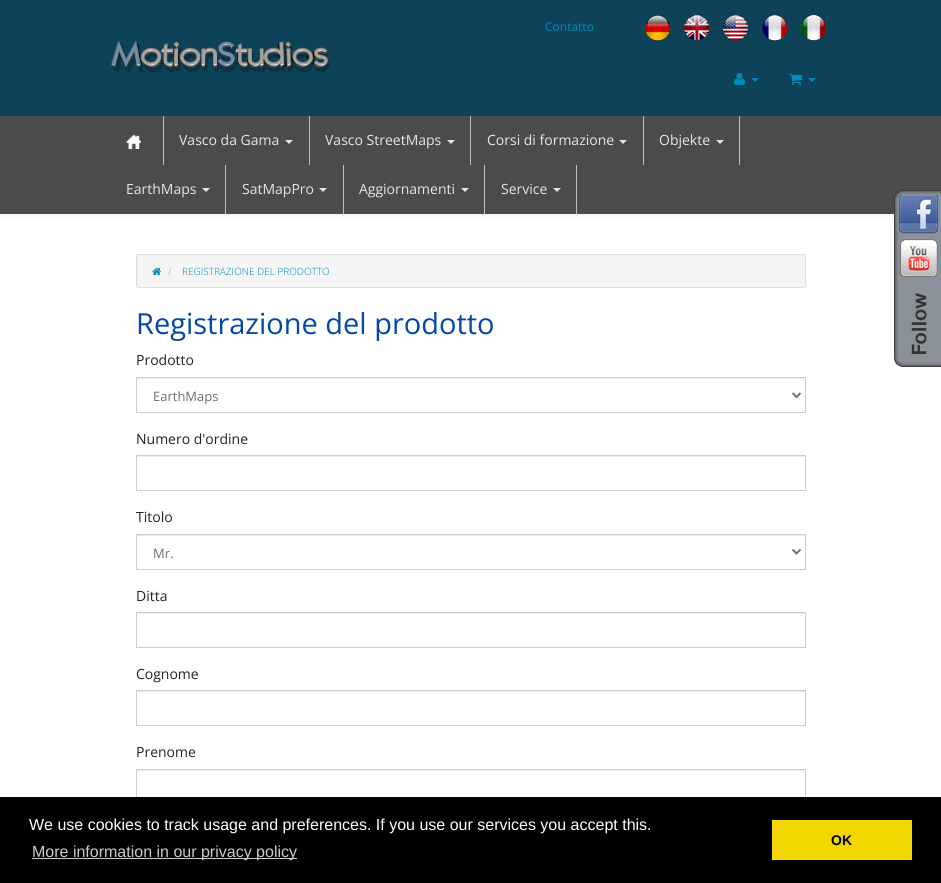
import math
import cairo

surface = cairo.ImageSurface(cairo.FORMAT_RGB24, 941, 883)
ctx = cairo.Context(surface)
options = cairo.FontOptions()
options.set_hint_metrics(cairo.HINT_METRICS_OFF)
options.set_hint_style(cairo.HINT_STYLE_NONE)
ctx.set_font_options(options)
ctx.set_miter_limit(4)


def set_color(code):
    ctx.set_source_rgb(*(v / 255 for v in bytes.fromhex(code[-6:])))


def draw_text(x, y, s, family, size, color, bold=False, italic=False):
    ctx.select_font_face(family, cairo.FONT_SLANT_ITALIC if italic else cairo.FONT_SLANT_NORMAL, cairo.FONT_WEIGHT_BOLD if bold else cairo.FONT_WEIGHT_NORMAL)
    ctx.set_font_size(size)
    set_color(color)
    ctx.move_to(x, y)
    ctx.show_text(s)


def fill_rect(x, y, w, h, color):
    set_color(color)
    ctx.rectangle(x, y, w, h)
    ctx.fill()


def rounded_rect(x, y, w, h, r):
    ctx.new_sub_path()
    for i, (u, v) in enumerate([(x + w - r, y + h - r), (x + r, y + h - r), (x + r, y + r), (x + w - r, y + r)]):
        ctx.arc(u, v, r, i * math.pi / 2, (i + 1) * math.pi / 2)
    ctx.close_path()


def draw_shadow(x, y, w, h, r, blur, alpha):
    ctx.push_group_with_content(cairo.CONTENT_ALPHA)
    ctx.set_operator(cairo.OPERATOR_SOURCE)
    for i in range(15, -16, -2):
        e = blur * i / 6
        if min(w, h) + 2 * e > 0:
            ctx.set_source_rgba(0, 0, 0, alpha * math.erfc((i - 1) / 8.5) / 2)
            rounded_rect(x - e, y - e, w + 2 * e, h + 2 * e, max(0, min(r + e + blur * .6, min(w, h) / 2 + e)))
            ctx.fill()
    ctx.mask(ctx.pop_group())


def draw_image(path, x, y, w, h):
    ctx.save()
    ctx.set_source_surface(cairo.ImageSurface.create_from_png(path), x, y)
    ctx.rectangle(x, y, w, h)
    ctx.fill()
    ctx.restore()


set_color("#ffffff")
ctx.paint()
set_color("#6a6a6a")
draw_shadow(-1, -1, 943, 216, 0, 2.5, 0.1)
fill_rect(0, 0, 941, 116, "#0d4259")
draw_text(545, 31, "Contatto", "Open Sans", 12, "#008cba")
draw_image("assets/img1.png", 645, 15, 25, 26)
draw_image("assets/img2.png", 684, 15, 25, 26)
draw_image("assets/img3.png", 723, 15, 25, 26)
draw_image("assets/img4.png", 762, 15, 25, 26)
draw_image("assets/img5.png", 801, 15, 25, 26)
draw_image("assets/img6.png", 111, 41, 219, 32)
draw_image("assets/img7.png", 734, 73, 11, 12)
ctx.new_path()
ctx.move_to(751, 78)
ctx.line_to(759, 78)
ctx.line_to(755, 82)
ctx.close_path()
ctx.fill()
draw_image("assets/img8.png", 789, 74, 13, 11)
ctx.new_path()
ctx.move_to(808, 78)
ctx.line_to(816, 78)
ctx.line_to(812, 82)
ctx.close_path()
ctx.fill()
fill_rect(0, 116, 941, 98, "#4b4b4b")
fill_rect(163, 116, 1, 49, "#bebebe")
draw_image("assets/img9.png", 126, 135, 15, 14)
fill_rect(309, 116, 1, 49, "#bebebe")
draw_text(179, 145, "Vasco da Gama", "Open Sans", 14, "#e6e6e6")
ctx.new_path()
ctx.move_to(285, 140)
ctx.line_to(293, 140)
ctx.line_to(289, 144)
ctx.close_path()
ctx.fill()
fill_rect(470, 116, 1, 49, "#bebebe")
draw_text(325, 145, "Vasco StreetMaps", "Open Sans", 14, "#e6e6e6")
ctx.new_path()
ctx.move_to(447, 140)
ctx.line_to(455, 140)
ctx.line_to(451, 144)
ctx.close_path()
ctx.fill()
fill_rect(643, 116, 1, 49, "#bebebe")
draw_text(487, 145, "Corsi di formazione", "Open Sans", 14, "#e6e6e6")
ctx.new_path()
ctx.move_to(619, 140)
ctx.line_to(627, 140)
ctx.line_to(623, 144)
ctx.close_path()
ctx.fill()
fill_rect(739, 116, 1, 49, "#bebebe")
draw_text(659, 145, "Objekte", "Open Sans", 14, "#e6e6e6")
ctx.new_path()
ctx.move_to(716, 140)
ctx.line_to(724, 140)
ctx.line_to(720, 144)
ctx.close_path()
ctx.fill()
fill_rect(225, 165, 1, 49, "#bebebe")
draw_text(126, 194, "EarthMaps", "Open Sans", 14, "#e6e6e6")
ctx.new_path()
ctx.move_to(202, 188)
ctx.line_to(210, 188)
ctx.line_to(206, 192)
ctx.close_path()
ctx.fill()
fill_rect(343, 165, 1, 49, "#bebebe")
draw_text(242, 194, "SatMapPro", "Open Sans", 14, "#e6e6e6")
ctx.new_path()
ctx.move_to(319, 188)
ctx.line_to(327, 188)
ctx.line_to(323, 192)
ctx.close_path()
ctx.fill()
fill_rect(484, 165, 1, 49, "#bebebe")
draw_text(359, 194, "Aggiornamenti", "Open Sans", 14, "#e6e6e6")
ctx.new_path()
ctx.move_to(461, 188)
ctx.line_to(469, 188)
ctx.line_to(465, 192)
ctx.close_path()
ctx.fill()
fill_rect(576, 165, 1, 49, "#bebebe")
draw_text(501, 194, "Service", "Open Sans", 14, "#e6e6e6")
ctx.new_path()
ctx.move_to(553, 188)
ctx.line_to(561, 188)
ctx.line_to(557, 192)
ctx.close_path()
ctx.fill()
set_color("#f5f5f5")
rounded_rect(136.5, 254.5, 669, 33, 2.5)
ctx.fill_preserve()
set_color("#dddddd")
ctx.set_line_width(1)
ctx.stroke()
draw_image("assets/img10.png", 152, 267, 10, 8)
draw_text(168, 275, "/", "Open Sans Light", 10, "#999999")
draw_text(182, 275, "REGISTRAZIONE DEL PRODOTTO", "Open Sans Light", 10, "#008cba")
draw_text(136, 334, "Registrazione del prodotto", "Open Sans", 29, "#0349a4")
draw_text(136, 365, "Prodotto", "Open Sans", 14, "#222222")
fill_rect(137, 378, 668, 1, "#ececec")
ctx.rectangle(136.5, 377.5, 669, 35)
set_color("#cccccc")
ctx.stroke()
ctx.new_path()
ctx.move_to(792.5, 393)
ctx.line_to(796.5, 397)
ctx.line_to(800.5, 393)
set_color("#6f6f6f")
ctx.set_line_width(2)
ctx.stroke()
draw_text(153, 401, "EarthMaps", "Open Sans", 13, "#6f6f6f")
draw_text(136, 444, "Numero d'ordine", "Open Sans", 14, "#222222")
fill_rect(137, 456, 668, 1, "#ececec")
ctx.rectangle(136.5, 455.5, 669, 35)
set_color("#cccccc")
ctx.set_line_width(1)
ctx.stroke()
draw_text(136, 522, "Titolo", "Open Sans", 14, "#222222")
fill_rect(137, 535, 668, 1, "#ececec")
ctx.rectangle(136.5, 534.5, 669, 35)
set_color("#cccccc")
ctx.stroke()
ctx.new_path()
ctx.move_to(792.5, 549.5)
ctx.line_to(796.5, 553.5)
ctx.line_to(800.5, 549.5)
set_color("#6f6f6f")
ctx.set_line_width(2)
ctx.stroke()
draw_text(153, 558, "Mr.", "Open Sans", 13, "#6f6f6f")
draw_text(136, 601, "Ditta", "Open Sans", 14, "#222222")
fill_rect(137, 613, 668, 1, "#ececec")
ctx.rectangle(136.5, 612.5, 669, 35)
set_color("#cccccc")
ctx.set_line_width(1)
ctx.stroke()
draw_text(136, 679, "Cognome", "Open Sans", 14, "#222222")
fill_rect(137, 691, 668, 1, "#ececec")
ctx.rectangle(136.5, 690.5, 669, 35)
set_color("#cccccc")
ctx.stroke()
draw_text(136, 757, "Prenome", "Open Sans", 14, "#222222")
fill_rect(137, 770, 668, 1, "#ececec")
ctx.rectangle(136.5, 769.5, 669, 35)
set_color("#cccccc")
ctx.stroke()
draw_image("assets/img11.png", 894, 190, 47, 177)
draw_image("assets/img12.png", 899, 195, 39, 39)
draw_image("assets/img13.png", 899, 239, 39, 38)
fill_rect(0, 797, 941, 86, "#000000")
draw_text(29, 830, "We use cookies to track usage and preferences. If you use our services you accept this.", "Liberation Sans", 16, "#ffffff")
fill_rect(32, 858, 265, 1, "#cccccc")
draw_text(32, 857, "More information in our privacy policy", "Liberation Sans", 16, "#cccccc")
fill_rect(772, 820, 140, 40, "#f1d600")
draw_text(831, 845, "OK", "Liberation Sans", 14, "#000000", bold=True)
surface.write_to_png("output.png")
